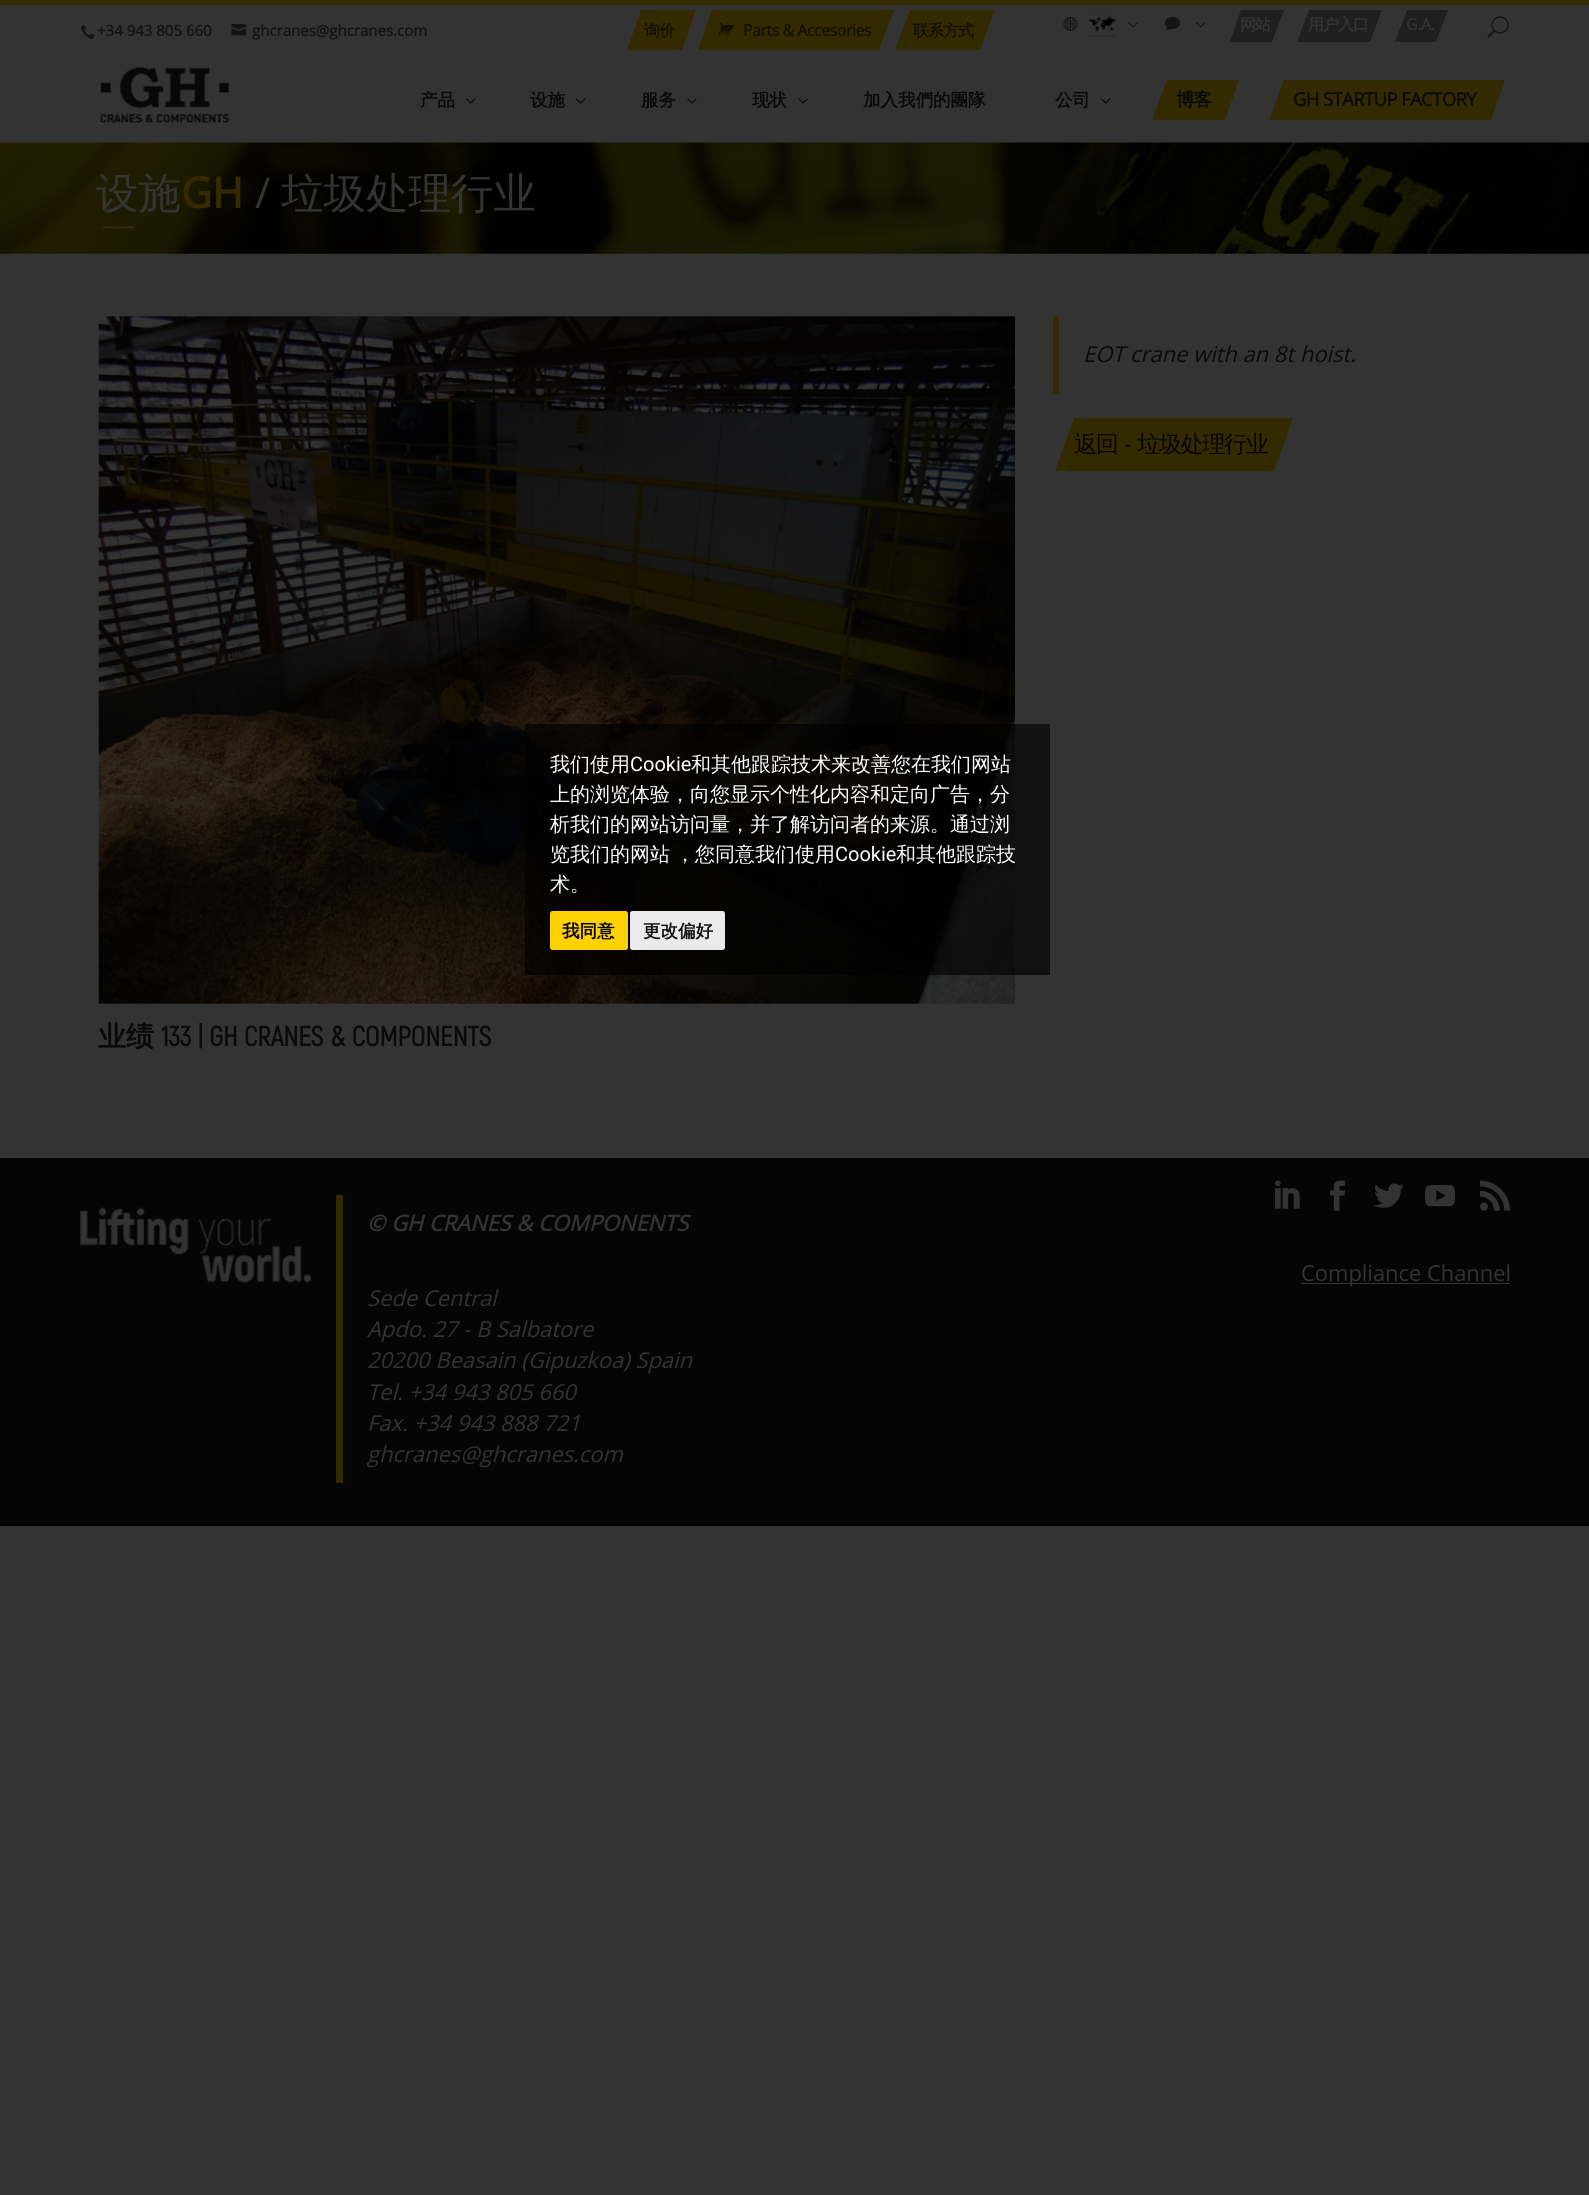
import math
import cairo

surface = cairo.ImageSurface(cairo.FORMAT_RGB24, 1589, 2195)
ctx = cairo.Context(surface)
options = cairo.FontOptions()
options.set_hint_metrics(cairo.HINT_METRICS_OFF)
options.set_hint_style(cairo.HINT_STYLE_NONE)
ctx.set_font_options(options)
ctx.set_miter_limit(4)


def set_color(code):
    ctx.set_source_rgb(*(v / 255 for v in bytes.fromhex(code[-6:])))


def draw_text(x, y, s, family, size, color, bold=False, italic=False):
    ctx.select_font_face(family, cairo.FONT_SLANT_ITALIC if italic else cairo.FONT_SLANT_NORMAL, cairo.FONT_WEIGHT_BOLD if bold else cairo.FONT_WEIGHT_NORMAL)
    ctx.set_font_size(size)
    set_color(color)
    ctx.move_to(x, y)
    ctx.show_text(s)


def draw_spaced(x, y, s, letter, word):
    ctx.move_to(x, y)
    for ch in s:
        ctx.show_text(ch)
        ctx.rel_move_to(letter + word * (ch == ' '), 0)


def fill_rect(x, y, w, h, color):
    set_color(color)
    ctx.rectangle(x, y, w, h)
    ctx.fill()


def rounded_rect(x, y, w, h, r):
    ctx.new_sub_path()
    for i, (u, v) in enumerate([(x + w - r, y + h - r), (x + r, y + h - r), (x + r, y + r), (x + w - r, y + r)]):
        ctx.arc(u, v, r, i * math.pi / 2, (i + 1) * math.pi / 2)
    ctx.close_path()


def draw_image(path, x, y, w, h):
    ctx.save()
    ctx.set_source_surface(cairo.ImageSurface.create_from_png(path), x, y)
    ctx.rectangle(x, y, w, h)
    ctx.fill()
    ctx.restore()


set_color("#333333")
ctx.paint()
fill_rect(0, 0, 1589, 5, "#332a00")
draw_image("assets/img1.png", 80, 25, 15, 14)
draw_text(97, 36, "+34 943 805 660", "Open Sans", 15, "#131313", bold=True)
draw_image("assets/img2.png", 231, 24, 16, 12)
draw_text(252, 36, "ghcranes@ghcranes.com", "Open Sans", 15, "#131313", bold=True)
set_color("#332a00")
ctx.new_path()
ctx.move_to(641, 10)
ctx.line_to(696, 10)
ctx.line_to(682, 50)
ctx.line_to(627, 50)
ctx.close_path()
ctx.fill()
ctx.select_font_face("WenQuanYi Zen Hei", cairo.FONT_SLANT_NORMAL, cairo.FONT_WEIGHT_BOLD)
ctx.set_font_size(16)
set_color("#141100")
draw_spaced(644, 36, "询价", -1, 0)
set_color("#332a00")
ctx.new_path()
ctx.move_to(712, 10)
ctx.line_to(894, 10)
ctx.line_to(879, 50)
ctx.line_to(698, 50)
ctx.close_path()
ctx.fill()
draw_image("assets/img3.png", 718, 23, 16, 14)
ctx.select_font_face("Open Sans", cairo.FONT_SLANT_NORMAL, cairo.FONT_WEIGHT_BOLD)
set_color("#141100")
draw_spaced(743, 36, "Parts & Accesories", -0.5, 0)
set_color("#332a00")
ctx.new_path()
ctx.move_to(910, 10)
ctx.line_to(995, 10)
ctx.line_to(980, 50)
ctx.line_to(895, 50)
ctx.close_path()
ctx.fill()
ctx.select_font_face("WenQuanYi Zen Hei", cairo.FONT_SLANT_NORMAL, cairo.FONT_WEIGHT_BOLD)
set_color("#141100")
draw_spaced(913, 36, "联系方式", -1, 0)
draw_image("assets/img4.png", 1063, 16, 15, 15)
draw_image("assets/img5.png", 1088, 15, 29, 22)
draw_image("assets/img6.png", 1128, 22, 10, 6)
draw_image("assets/img7.png", 1165, 16, 15, 14)
draw_image("assets/img8.png", 1196, 22, 10, 6)
set_color("#1f1f1f")
ctx.new_path()
ctx.move_to(1241, 10)
ctx.line_to(1284, 10)
ctx.line_to(1272, 42)
ctx.line_to(1230, 42)
ctx.close_path()
ctx.fill()
set_color("#333333")
draw_spaced(1240, 30, "网站", -1, 0)
set_color("#1f1f1f")
ctx.new_path()
ctx.move_to(1309, 10)
ctx.line_to(1382, 10)
ctx.line_to(1370, 42)
ctx.line_to(1297, 42)
ctx.close_path()
ctx.fill()
set_color("#333333")
draw_spaced(1308, 30, "用户入口", -1, 0)
set_color("#1f1f1f")
ctx.new_path()
ctx.move_to(1407, 10)
ctx.line_to(1448, 10)
ctx.line_to(1436, 42)
ctx.line_to(1395, 42)
ctx.close_path()
ctx.fill()
ctx.select_font_face("Open Sans", cairo.FONT_SLANT_NORMAL, cairo.FONT_WEIGHT_BOLD)
set_color("#333333")
draw_spaced(1406, 30, "G.A.", -0.5, 0)
draw_image("assets/img9.png", 1487, 16, 22, 22)
draw_image("assets/img10.png", 100, 67, 130, 56)
draw_text(420, 106, "产品", "WenQuanYi Zen Hei", 17.5, "#0a0a0a", bold=True)
draw_image("assets/img11.png", 466, 98, 10, 6)
draw_text(530, 106, "设施", "WenQuanYi Zen Hei", 17.5, "#0a0a0a", bold=True)
draw_image("assets/img11.png", 576, 98, 10, 6)
draw_text(641, 106, "服务", "WenQuanYi Zen Hei", 17.5, "#0a0a0a", bold=True)
draw_image("assets/img12.png", 687, 98, 10, 6)
draw_text(752, 106, "现状", "WenQuanYi Zen Hei", 17.5, "#0a0a0a", bold=True)
draw_image("assets/img13.png", 798, 98, 10, 6)
draw_text(863, 106, "加入我們的團隊", "WenQuanYi Zen Hei", 17.5, "#0a0a0a", bold=True)
draw_text(1055, 106, "公司", "WenQuanYi Zen Hei", 17.5, "#0a0a0a", bold=True)
draw_image("assets/img11.png", 1101, 98, 10, 6)
set_color("#332a00")
ctx.new_path()
ctx.move_to(1167, 80)
ctx.line_to(1239, 80)
ctx.line_to(1225, 120)
ctx.line_to(1152, 120)
ctx.close_path()
ctx.fill()
ctx.set_font_size(18.6)
set_color("#0a0a0a")
draw_spaced(1176, 106, "博客", -1, 0)
set_color("#332a00")
ctx.new_path()
ctx.move_to(1284, 80)
ctx.line_to(1505, 80)
ctx.line_to(1491, 120)
ctx.line_to(1269, 120)
ctx.close_path()
ctx.fill()
ctx.select_font_face("Open Sans", cairo.FONT_SLANT_NORMAL, cairo.FONT_WEIGHT_BOLD)
set_color("#0a0a0a")
draw_spaced(1293, 106, "GH STARTUP FACTORY", -0.7, 0)
draw_image("assets/img14.png", 0, 142, 1589, 112)
draw_text(96, 208, "设施", "WenQuanYi Zen Hei Medium", 42.5, "#333333")
draw_text(181, 208, "GH", "Open Sans", 42.5, "#332a00", bold=True)
draw_text(255, 208, "/", "Open Sans", 42.5, "#333333")
draw_text(281, 208, "垃圾处理行业", "WenQuanYi Zen Hei Medium", 42.5, "#333333")
draw_text(103, 223, "__", "Open Sans", 35, "#332a00")
fill_rect(1053, 316, 6, 78, "#332a00")
draw_text(1083, 362, "EOT crane with an 8t hoist.", "Open Sans", 21.9, "#0a0a0a", italic=True)
set_color("#332a00")
ctx.new_path()
ctx.move_to(1074, 418)
ctx.line_to(1293, 418)
ctx.line_to(1274, 471)
ctx.line_to(1055, 471)
ctx.close_path()
ctx.fill()
ctx.select_font_face("WenQuanYi Zen Hei Medium")
ctx.set_font_size(23.25)
set_color("#050400")
draw_spaced(1074, 452, "返回", -1.5, 0)
draw_text(1124, 452, "-", "Open Sans", 23.25, "#050400")
ctx.select_font_face("WenQuanYi Zen Hei Medium")
draw_spaced(1137, 452, "垃圾处理行业", -1.5, 0)
draw_image("assets/img15.png", 98, 316, 917, 688)
draw_text(98, 1046, "业绩", "WenQuanYi Zen Hei", 28, "#0a0a0a", bold=True)
draw_text(161, 1046, "133 | GH CRANES & COMPONENTS", "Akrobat", 28, "#0a0a0a", bold=True)
ctx.set_source_rgba(0, 0, 0, 0.65)
ctx.rectangle(525, 724, 525, 251)
ctx.fill()
draw_text(550, 771, "我们使用", "WenQuanYi Zen Hei Medium", 20, "#ffffff")
draw_text(630, 771, "Cookie", "Roboto", 20, "#ffffff")
draw_text(691, 771, "和其他跟踪技术来改善您在我们网站", "WenQuanYi Zen Hei Medium", 20, "#ffffff")
draw_text(550, 801, "上的浏览体验，向您显示个性化内容和定向广告，分", "WenQuanYi Zen Hei Medium", 20, "#ffffff")
draw_text(550, 831, "析我们的网站访问量，并了解访问者的来源。通过浏", "WenQuanYi Zen Hei Medium", 20, "#ffffff")
draw_spaced(550, 861, "览我们的网站 ，您同意我们使用", 0, -1)
draw_text(835, 861, "Cookie", "Roboto", 20, "#ffffff")
draw_text(896, 861, "和其他跟踪技", "WenQuanYi Zen Hei Medium", 20, "#ffffff")
draw_text(550, 891, "术。", "WenQuanYi Zen Hei Medium", 20, "#ffffff")
set_color("#fed100")
rounded_rect(550, 911, 78, 39, 2.5)
ctx.fill()
draw_text(562, 937, "我同意", "WenQuanYi Zen Hei", 17.5, "#050400", bold=True)
set_color("#eaeaea")
rounded_rect(630, 911, 95, 39, 2.5)
ctx.fill()
draw_text(643, 937, "更改偏好", "WenQuanYi Zen Hei", 17.5, "#131313", bold=True)
fill_rect(0, 1158, 1589, 368, "#050505")
draw_image("assets/img16.png", 1275, 1180, 25, 29)
draw_image("assets/img17.png", 1330, 1180, 16, 31)
draw_image("assets/img18.png", 1374, 1183, 30, 25)
draw_image("assets/img19.png", 1425, 1184, 30, 23)
draw_image("assets/img20.png", 1480, 1180, 30, 31)
draw_image("assets/img21.png", 80, 1207, 232, 76)
fill_rect(336, 1195, 7, 288, "#332a00")
draw_text(367, 1231, "© GH CRANES & COMPONENTS", "Open Sans", 21.9, "#333333", bold=True, italic=True)
draw_text(367, 1306, "Sede Central", "Open Sans", 21.9, "#333333", italic=True)
draw_text(367, 1337, "Apdo. 27 - B Salbatore", "Open Sans", 21.9, "#333333", italic=True)
draw_text(367, 1368, "20200 Beasain (Gipuzkoa) Spain", "Open Sans", 21.9, "#333333", italic=True)
draw_text(367, 1400, "Tel. +34 943 805 660", "Open Sans", 21.9, "#333333", italic=True)
draw_text(367, 1431, "Fax. +34 943 888 721", "Open Sans", 21.9, "#333333", italic=True)
draw_text(367, 1462, "ghcranes@ghcranes.com", "Open Sans", 21.9, "#333333", italic=True)
fill_rect(1301, 1283, 209, 1, "#333333")
draw_text(1301, 1281, "Compliance Channel", "Open Sans", 21.9, "#333333")
surface.write_to_png("output.png")
